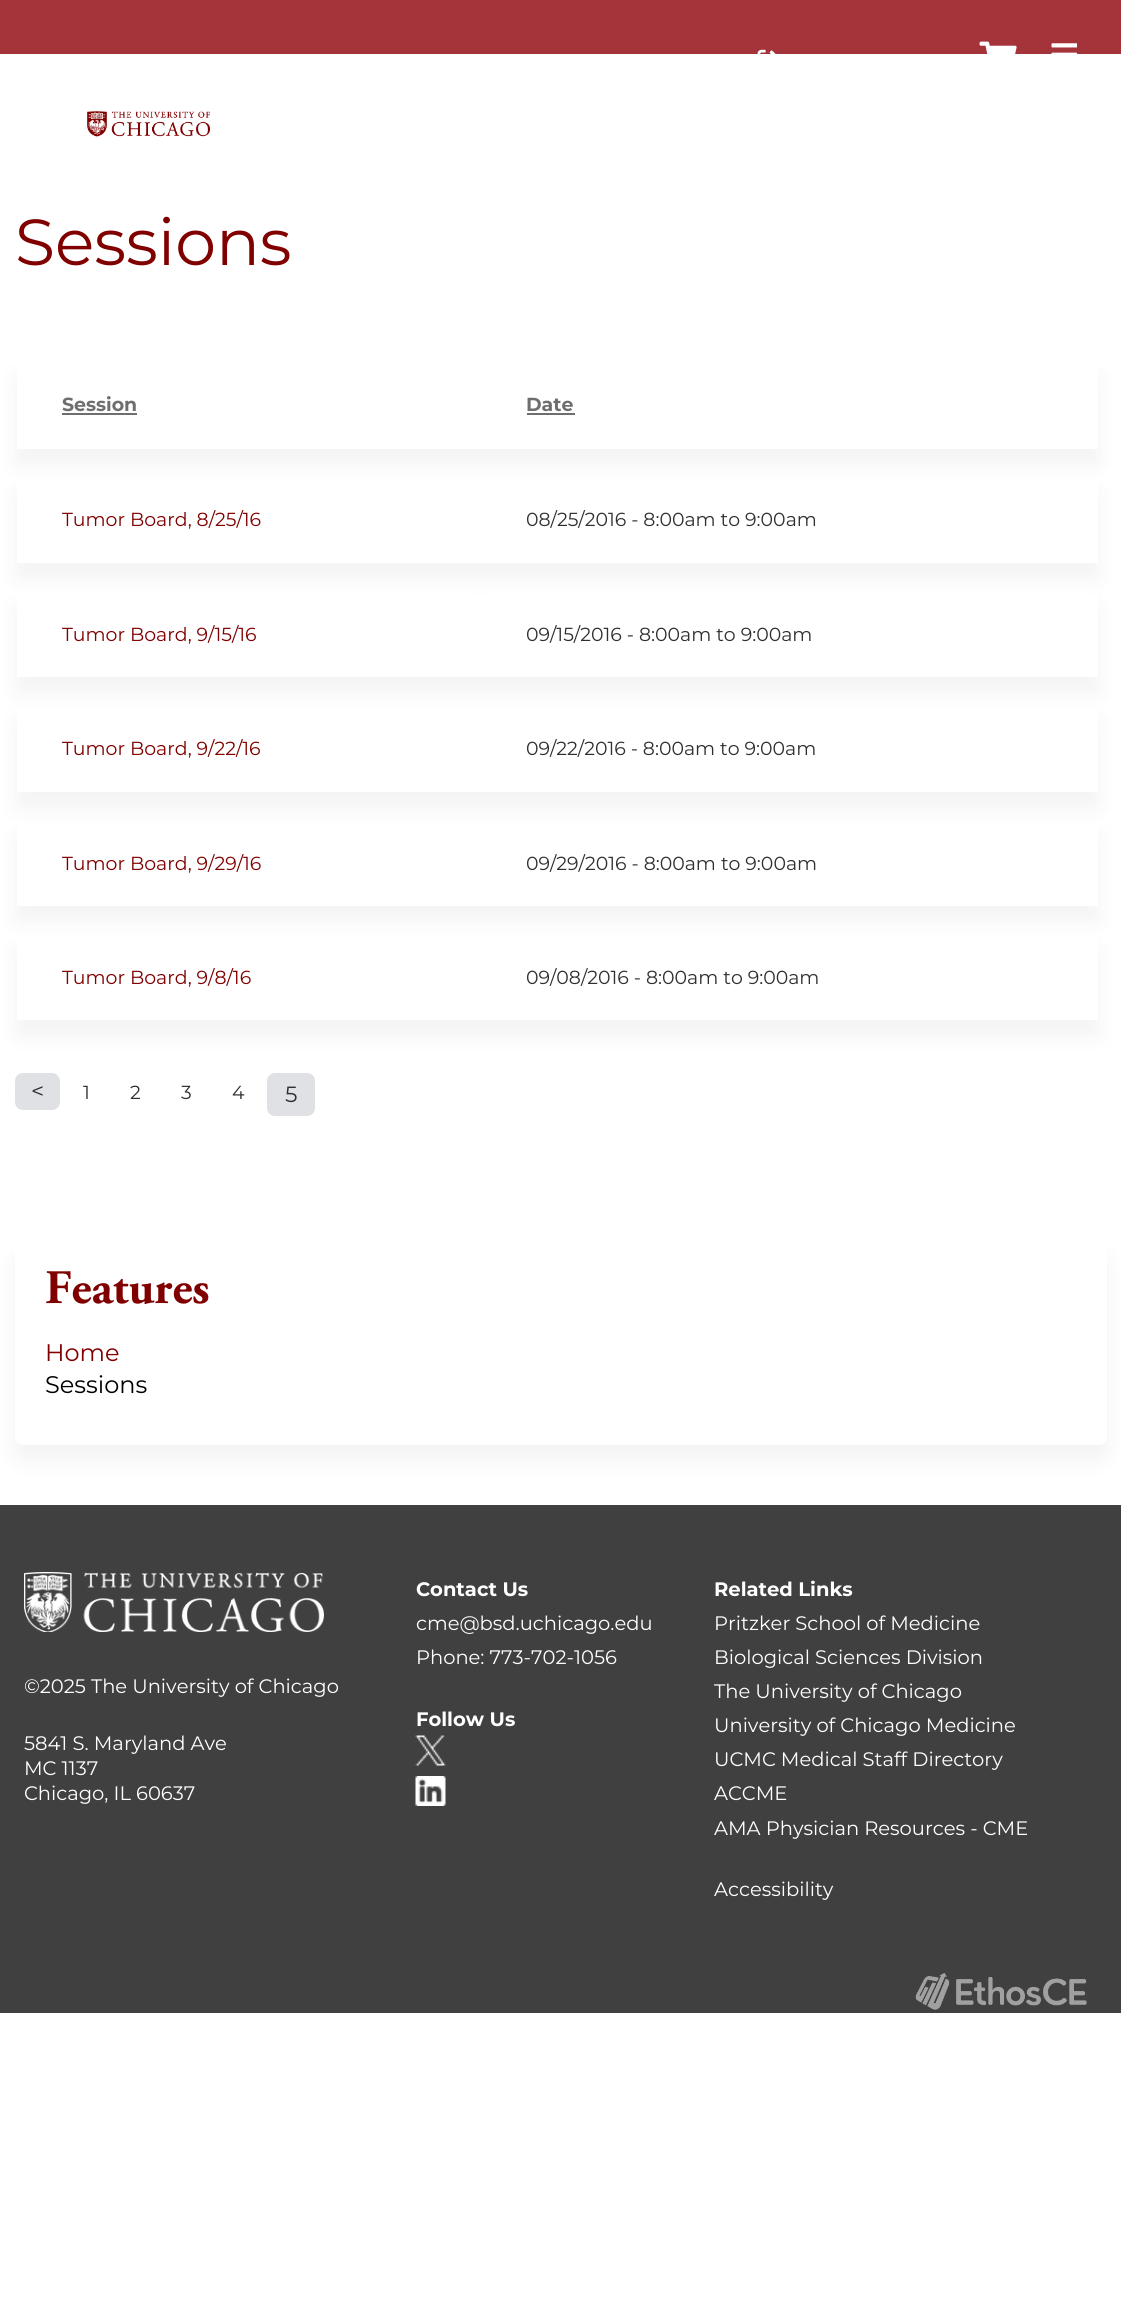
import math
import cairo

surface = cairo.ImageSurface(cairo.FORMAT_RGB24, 1121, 2298)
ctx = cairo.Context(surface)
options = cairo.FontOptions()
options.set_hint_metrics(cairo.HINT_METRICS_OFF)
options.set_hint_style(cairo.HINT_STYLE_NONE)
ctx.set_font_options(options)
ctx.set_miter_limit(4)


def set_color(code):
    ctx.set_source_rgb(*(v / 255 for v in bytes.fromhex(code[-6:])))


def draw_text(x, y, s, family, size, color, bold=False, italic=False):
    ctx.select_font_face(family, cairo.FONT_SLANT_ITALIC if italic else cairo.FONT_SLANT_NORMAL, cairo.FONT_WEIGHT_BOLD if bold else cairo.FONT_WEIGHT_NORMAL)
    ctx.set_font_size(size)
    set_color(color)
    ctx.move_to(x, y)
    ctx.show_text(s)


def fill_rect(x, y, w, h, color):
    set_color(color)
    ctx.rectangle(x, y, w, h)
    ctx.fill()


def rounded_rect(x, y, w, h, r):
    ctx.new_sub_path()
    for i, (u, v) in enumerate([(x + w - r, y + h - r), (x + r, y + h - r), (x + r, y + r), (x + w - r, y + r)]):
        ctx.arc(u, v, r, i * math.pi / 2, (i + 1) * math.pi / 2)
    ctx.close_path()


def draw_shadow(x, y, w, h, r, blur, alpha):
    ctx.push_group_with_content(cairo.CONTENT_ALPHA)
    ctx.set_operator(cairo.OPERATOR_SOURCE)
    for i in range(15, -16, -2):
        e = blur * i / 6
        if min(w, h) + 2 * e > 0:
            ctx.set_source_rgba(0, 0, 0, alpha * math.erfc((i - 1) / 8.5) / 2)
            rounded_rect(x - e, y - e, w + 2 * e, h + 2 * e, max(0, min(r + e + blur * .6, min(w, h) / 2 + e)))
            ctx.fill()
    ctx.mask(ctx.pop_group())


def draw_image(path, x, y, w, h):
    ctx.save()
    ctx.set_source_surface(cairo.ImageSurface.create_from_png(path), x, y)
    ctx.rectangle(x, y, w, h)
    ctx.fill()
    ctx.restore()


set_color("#ffffff")
ctx.paint()
fill_rect(0, 0, 1121, 54, "#a4343a")
draw_image("assets/img1.png", 757, 49, 19, 5)
draw_image("assets/img2.png", 979, 41, 38, 13)
draw_image("assets/img3.png", 1051, 43, 26, 11)
draw_image("assets/img4.png", 87, 111, 123, 26)
draw_text(15, 265, "Sessions", "Montserrat", 65, "#800000")
ctx.save()
ctx.set_fill_rule(cairo.FILL_RULE_EVEN_ODD)
ctx.new_path()
ctx.move_to(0, 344)
ctx.line_to(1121, 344)
ctx.line_to(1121, 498)
ctx.line_to(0, 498)
ctx.close_path()
ctx.move_to(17, 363)
ctx.line_to(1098, 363)
ctx.line_to(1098, 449)
ctx.line_to(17, 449)
ctx.close_path()
ctx.clip()
set_color("#000000")
draw_shadow(17, 378, 1081, 86, 0, 11, 0.05)
ctx.restore()
set_color("#ffffff")
rounded_rect(17, 363, 465, 86, 8)
ctx.fill()
draw_text(62, 411, "Session", "Montserrat", 18.9, "#6e6e6e", bold=True)
fill_rect(62, 413, 75, 2, "#6e6e6e")
set_color("#ffffff")
rounded_rect(482, 363, 616, 86, 8)
ctx.fill()
draw_text(526, 411, "Date", "Montserrat", 18.9, "#6e6e6e", bold=True)
fill_rect(527, 413, 48, 2, "#6e6e6e")
ctx.save()
ctx.set_fill_rule(cairo.FILL_RULE_EVEN_ODD)
ctx.new_path()
ctx.move_to(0, 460)
ctx.line_to(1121, 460)
ctx.line_to(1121, 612)
ctx.line_to(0, 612)
ctx.close_path()
ctx.move_to(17, 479)
ctx.line_to(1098, 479)
ctx.line_to(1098, 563)
ctx.line_to(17, 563)
ctx.close_path()
ctx.clip()
set_color("#000000")
draw_shadow(17, 494, 1081, 84, 0, 11, 0.05)
ctx.restore()
set_color("#ffffff")
rounded_rect(17, 479, 465, 84, 8)
ctx.fill()
draw_text(62, 526, "Tumor Board, 8/25/16", "Montserrat", 18.9, "#800000")
set_color("#ffffff")
rounded_rect(482, 479, 616, 84, 8)
ctx.fill()
draw_text(526, 526, "08/25/2016 - 8:00am to 9:00am", "Montserrat", 18.9, "#2f2f2f")
ctx.save()
ctx.set_fill_rule(cairo.FILL_RULE_EVEN_ODD)
ctx.new_path()
ctx.move_to(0, 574)
ctx.line_to(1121, 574)
ctx.line_to(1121, 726)
ctx.line_to(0, 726)
ctx.close_path()
ctx.move_to(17, 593)
ctx.line_to(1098, 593)
ctx.line_to(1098, 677)
ctx.line_to(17, 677)
ctx.close_path()
ctx.clip()
set_color("#000000")
draw_shadow(17, 608, 1081, 84, 0, 11, 0.05)
ctx.restore()
set_color("#ffffff")
rounded_rect(17, 593, 465, 84, 8)
ctx.fill()
draw_text(62, 641, "Tumor Board, 9/15/16", "Montserrat", 18.9, "#800000")
set_color("#ffffff")
rounded_rect(482, 593, 616, 84, 8)
ctx.fill()
draw_text(526, 641, "09/15/2016 - 8:00am to 9:00am", "Montserrat", 18.9, "#2f2f2f")
ctx.save()
ctx.set_fill_rule(cairo.FILL_RULE_EVEN_ODD)
ctx.new_path()
ctx.move_to(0, 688)
ctx.line_to(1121, 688)
ctx.line_to(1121, 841)
ctx.line_to(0, 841)
ctx.close_path()
ctx.move_to(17, 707)
ctx.line_to(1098, 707)
ctx.line_to(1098, 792)
ctx.line_to(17, 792)
ctx.close_path()
ctx.clip()
set_color("#000000")
draw_shadow(17, 722, 1081, 85, 0, 11, 0.05)
ctx.restore()
draw_text(62, 755, "Tumor Board, 9/22/16", "Montserrat", 18.9, "#800000")
draw_text(526, 755, "09/22/2016 - 8:00am to 9:00am", "Montserrat", 18.9, "#2f2f2f")
ctx.save()
ctx.set_fill_rule(cairo.FILL_RULE_EVEN_ODD)
ctx.new_path()
ctx.move_to(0, 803)
ctx.line_to(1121, 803)
ctx.line_to(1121, 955)
ctx.line_to(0, 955)
ctx.close_path()
ctx.move_to(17, 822)
ctx.line_to(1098, 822)
ctx.line_to(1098, 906)
ctx.line_to(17, 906)
ctx.close_path()
ctx.clip()
set_color("#000000")
draw_shadow(17, 837, 1081, 84, 0, 11, 0.05)
ctx.restore()
draw_text(62, 870, "Tumor Board, 9/29/16", "Montserrat", 18.9, "#800000")
draw_text(526, 870, "09/29/2016 - 8:00am to 9:00am", "Montserrat", 18.9, "#2f2f2f")
ctx.save()
ctx.set_fill_rule(cairo.FILL_RULE_EVEN_ODD)
ctx.new_path()
ctx.move_to(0, 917)
ctx.line_to(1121, 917)
ctx.line_to(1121, 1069)
ctx.line_to(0, 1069)
ctx.close_path()
ctx.move_to(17, 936)
ctx.line_to(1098, 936)
ctx.line_to(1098, 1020)
ctx.line_to(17, 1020)
ctx.close_path()
ctx.clip()
set_color("#000000")
draw_shadow(17, 951, 1081, 84, 0, 11, 0.05)
ctx.restore()
draw_text(62, 984, "Tumor Board, 9/8/16", "Montserrat", 18.9, "#800000")
draw_text(526, 984, "09/08/2016 - 8:00am to 9:00am", "Montserrat", 18.9, "#2f2f2f")
set_color("#dfe1e5")
rounded_rect(15, 1073, 45, 37, 8)
ctx.fill()
draw_text(31, 1099, "<", "Montserrat", 23, "#2f2f2f")
draw_text(83, 1099, "1", "Montserrat", 18.9, "#2f2f2f")
draw_text(130, 1099, "2", "Montserrat", 18.9, "#2f2f2f")
draw_text(181, 1099, "3", "Montserrat", 18.9, "#2f2f2f")
draw_text(232, 1099, "4", "Montserrat", 18.9, "#2f2f2f")
set_color("#dfe1e5")
rounded_rect(267, 1073, 48, 43, 8)
ctx.fill()
draw_text(285, 1102, "5", "Montserrat", 22, "#2f2f2f")
set_color("#000000")
draw_shadow(15, 1257, 1092, 203, 8, 11, 0.05)
set_color("#ffffff")
rounded_rect(15, 1242, 1092, 203, 8)
ctx.fill()
draw_text(45, 1303, "Features", "Adobe Garamond", 48, "#800000", bold=True)
draw_text(45, 1361, "Home", "Montserrat", 24, "#800000")
draw_text(45, 1393, "Sessions", "Montserrat", 24, "#000000")
fill_rect(0, 1505, 1121, 508, "#404040")
draw_text(416, 1596, "Contact Us", "Montserrat", 19.5, "#ffffff", bold=True)
draw_text(416, 1630, "cme@bsd.uchicago.edu", "Montserrat", 19.5, "#ffffff")
draw_text(416, 1664, "Phone: 773-702-1056", "Montserrat", 19.5, "#ffffff")
draw_text(416, 1726, "Follow Us", "Montserrat", 19.5, "#ffffff", bold=True)
draw_image("assets/img5.png", 415, 1735, 31, 31)
draw_image("assets/img6.png", 415, 1776, 31, 30)
draw_text(714, 1596, "Related Links", "Montserrat", 19.5, "#ffffff", bold=True)
draw_text(714, 1630, "Pritzker School of Medicine", "Montserrat", 19.5, "#ffffff")
draw_text(714, 1664, "Biological Sciences Division", "Montserrat", 19.5, "#ffffff")
draw_text(714, 1698, "The University of Chicago", "Montserrat", 19.5, "#ffffff")
draw_text(714, 1732, "University of Chicago Medicine", "Montserrat", 19.5, "#ffffff")
draw_text(714, 1766, "UCMC Medical Staff Directory", "Montserrat", 19.5, "#ffffff")
draw_text(714, 1800, "ACCME", "Montserrat", 19.5, "#ffffff")
draw_text(714, 1835, "AMA Physician Resources - CME", "Montserrat", 19.5, "#ffffff")
draw_text(714, 1896, "Accessibility", "Montserrat", 19.5, "#ffffff")
draw_image("assets/img7.png", 24, 1572, 300, 60)
draw_text(24, 1693, "©2025 The University of Chicago", "Montserrat", 19.5, "#ffffff")
draw_text(24, 1750, "5841 S. Maryland Ave", "Montserrat", 19.5, "#ffffff")
draw_text(24, 1775, "MC 1137", "Montserrat", 19.5, "#ffffff")
draw_text(24, 1800, "Chicago, IL 60637", "Montserrat", 19.5, "#ffffff")
draw_image("assets/img8.png", 915, 1973, 172, 37)
surface.write_to_png("output.png")
